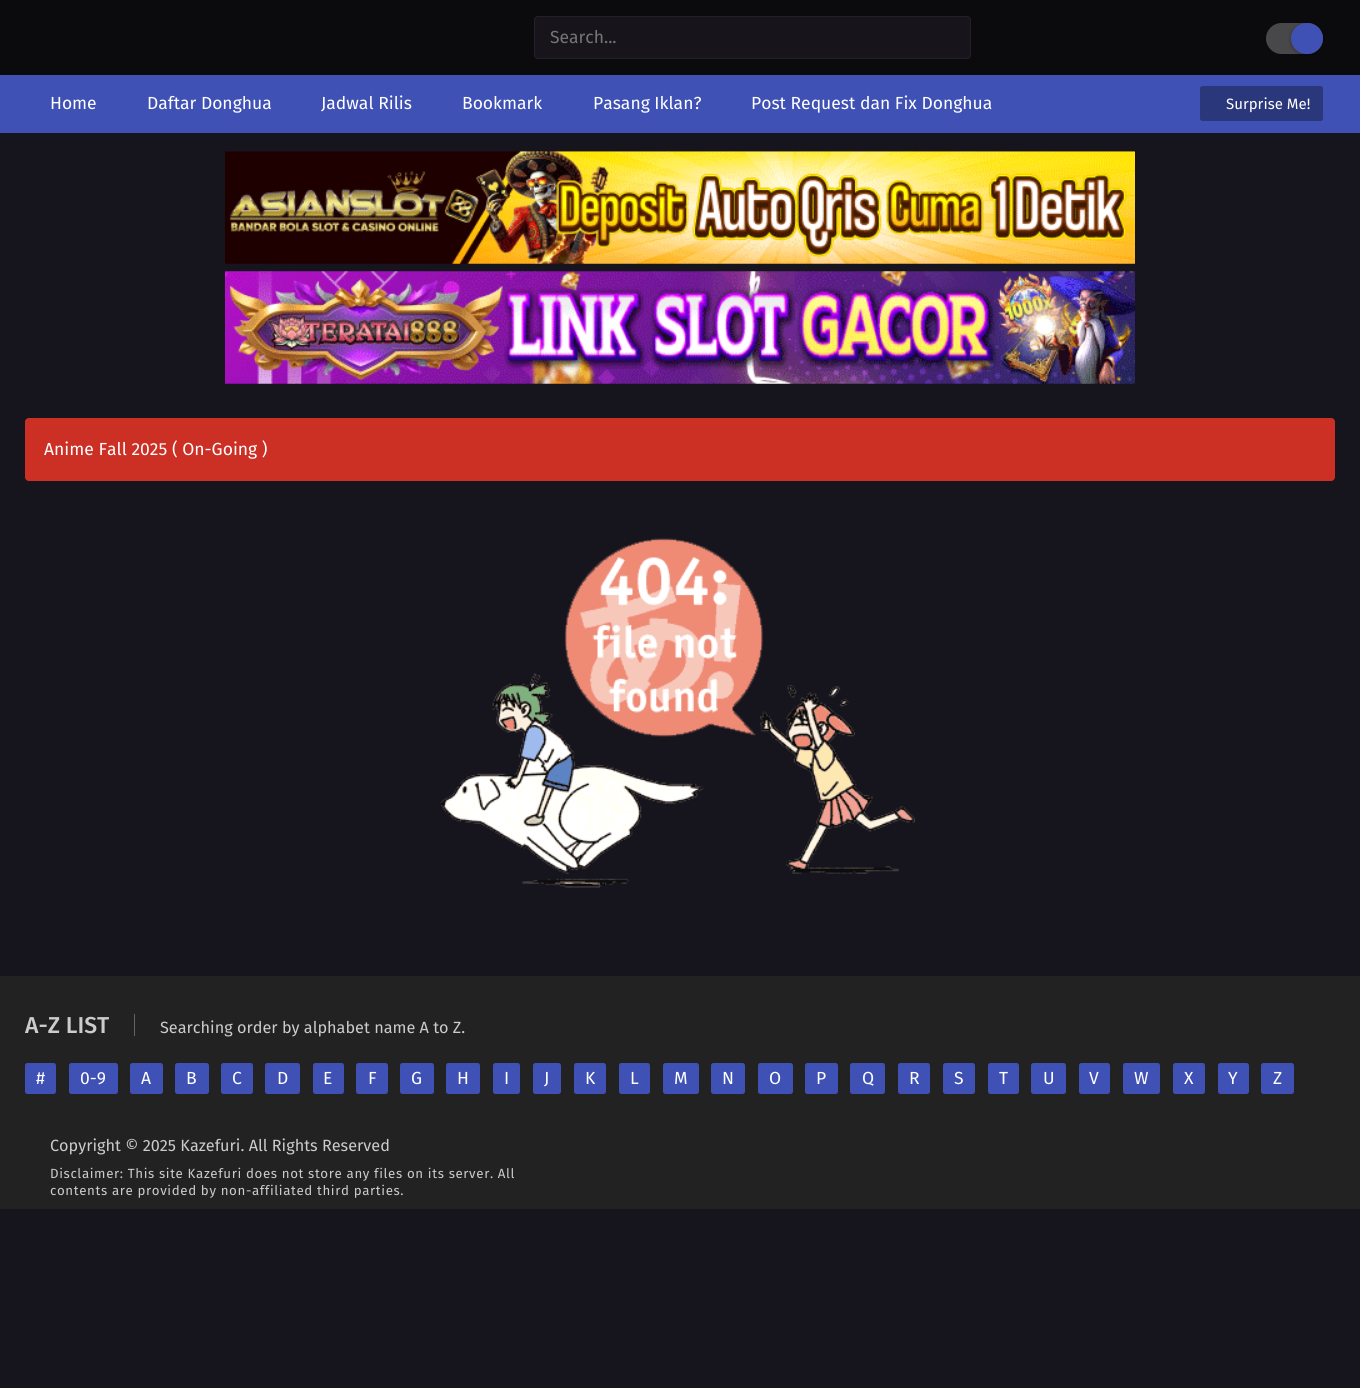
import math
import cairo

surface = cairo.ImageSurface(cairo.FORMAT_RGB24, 1360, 1388)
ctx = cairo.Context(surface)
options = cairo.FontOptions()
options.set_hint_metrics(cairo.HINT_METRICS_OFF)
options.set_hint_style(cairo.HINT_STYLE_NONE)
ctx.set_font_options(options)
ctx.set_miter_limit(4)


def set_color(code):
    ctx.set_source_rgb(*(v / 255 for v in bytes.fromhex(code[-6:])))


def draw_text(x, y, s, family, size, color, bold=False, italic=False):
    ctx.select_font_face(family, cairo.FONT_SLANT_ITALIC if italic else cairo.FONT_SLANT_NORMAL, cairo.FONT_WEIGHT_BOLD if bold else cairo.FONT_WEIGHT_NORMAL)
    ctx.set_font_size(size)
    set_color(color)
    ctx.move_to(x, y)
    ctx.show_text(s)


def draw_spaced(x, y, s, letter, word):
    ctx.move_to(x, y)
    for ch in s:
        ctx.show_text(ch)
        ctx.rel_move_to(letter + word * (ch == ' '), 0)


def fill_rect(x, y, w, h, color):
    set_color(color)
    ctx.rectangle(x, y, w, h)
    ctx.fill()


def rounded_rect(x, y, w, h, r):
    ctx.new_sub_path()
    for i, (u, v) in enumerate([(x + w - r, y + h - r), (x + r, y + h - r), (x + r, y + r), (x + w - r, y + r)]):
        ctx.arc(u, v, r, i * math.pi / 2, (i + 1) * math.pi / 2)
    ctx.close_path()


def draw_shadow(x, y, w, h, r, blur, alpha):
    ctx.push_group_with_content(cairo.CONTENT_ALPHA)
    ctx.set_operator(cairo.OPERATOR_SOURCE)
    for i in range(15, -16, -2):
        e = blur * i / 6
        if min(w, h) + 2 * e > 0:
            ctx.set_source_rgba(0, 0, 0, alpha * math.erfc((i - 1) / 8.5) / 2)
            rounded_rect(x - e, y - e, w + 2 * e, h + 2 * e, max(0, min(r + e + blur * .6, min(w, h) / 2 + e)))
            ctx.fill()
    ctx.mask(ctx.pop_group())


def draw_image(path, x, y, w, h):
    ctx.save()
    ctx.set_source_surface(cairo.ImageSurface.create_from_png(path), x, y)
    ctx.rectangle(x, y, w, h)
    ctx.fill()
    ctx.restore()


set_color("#16151d")
ctx.paint()
fill_rect(0, 0, 1360, 75, "#0b0a0d")
set_color("#17151b")
rounded_rect(534.5, 16.5, 436, 42, 3.5)
ctx.fill_preserve()
set_color("#23202a")
ctx.set_line_width(1)
ctx.stroke()
draw_text(550, 43, "Search...", "Fira Sans", 17.5, "#757575")
set_color("#48474a")
rounded_rect(1266, 23, 57, 31, 15.5)
ctx.fill()
set_color("#000000")
draw_shadow(1291, 24, 32, 31, 15.5, 2, 0.3)
set_color("#3f51b5")
rounded_rect(1291, 23, 32, 31, 15.5)
ctx.fill()
fill_rect(0, 75, 1360, 58, "#3f51b5")
draw_text(50, 109, "Home", "Fira Sans", 17.5, "#ffffff")
draw_text(147, 109, "Daftar Donghua", "Fira Sans", 17.5, "#ffffff")
draw_text(321, 109, "Jadwal Rilis", "Fira Sans", 17.5, "#ffffff")
draw_text(462, 109, "Bookmark", "Fira Sans", 17.5, "#ffffff")
draw_text(593, 109, "Pasang Iklan?", "Fira Sans", 17.5, "#ffffff")
draw_text(751, 109, "Post Request dan Fix Donghua", "Fira Sans", 17.5, "#ffffff")
set_color("#2b377b")
rounded_rect(1200, 86, 123, 35, 2.5)
ctx.fill()
draw_text(1226, 109, "Surprise Me!", "Fira Sans", 15, "#ffffff")
draw_image("assets/img1.png", 225, 151, 910, 113)
draw_image("assets/img2.png", 225, 271, 910, 113)
set_color("#cc2f24")
rounded_rect(25, 418, 1310, 63, 4)
ctx.fill()
draw_text(44, 455, "Anime Fall 2025 ( On-Going )", "Fira Sans", 17.5, "#ffffff")
draw_image("assets/img3.png", 440, 538, 476, 350)
fill_rect(0, 976, 1360, 233, "#222222")
fill_rect(134, 1014, 1, 22, "#646464")
draw_text(25, 1033, "A-Z LIST", "Fira Sans Medium", 23, "#cccccc")
draw_text(160, 1033, "Searching order by alphabet name A to Z.", "Fira Sans", 16.25, "#cccccc")
set_color("#3f51b5")
rounded_rect(25, 1063, 31, 31, 2.5)
ctx.fill()
draw_text(36, 1084, "#", "Fira Sans", 17.5, "#ffffff")
set_color("#3f51b5")
rounded_rect(69, 1063, 49, 31, 2.5)
ctx.fill()
draw_text(80, 1084, "0-9", "Fira Sans", 17.5, "#ffffff")
set_color("#3f51b5")
rounded_rect(130, 1063, 33, 31, 2.5)
ctx.fill()
draw_text(141, 1084, "A", "Fira Sans", 17.5, "#ffffff")
set_color("#3f51b5")
rounded_rect(175, 1063, 34, 31, 2.5)
ctx.fill()
draw_text(186, 1084, "B", "Fira Sans", 17.5, "#ffffff")
set_color("#3f51b5")
rounded_rect(221, 1063, 32, 31, 2.5)
ctx.fill()
draw_text(232, 1084, "C", "Fira Sans", 17.5, "#ffffff")
set_color("#3f51b5")
rounded_rect(265, 1063, 35, 31, 2.5)
ctx.fill()
draw_text(277, 1084, "D", "Fira Sans", 17.5, "#ffffff")
set_color("#3f51b5")
rounded_rect(313, 1063, 31, 31, 2.5)
ctx.fill()
draw_text(323, 1084, "E", "Fira Sans", 17.5, "#ffffff")
set_color("#3f51b5")
rounded_rect(356, 1063, 32, 31, 2.5)
ctx.fill()
draw_text(368, 1084, "F", "Fira Sans", 17.5, "#ffffff")
set_color("#3f51b5")
rounded_rect(400, 1063, 34, 31, 2.5)
ctx.fill()
draw_text(411, 1084, "G", "Fira Sans", 17.5, "#ffffff")
set_color("#3f51b5")
rounded_rect(446, 1063, 34, 31, 2.5)
ctx.fill()
draw_text(457, 1084, "H", "Fira Sans", 17.5, "#ffffff")
set_color("#3f51b5")
rounded_rect(493, 1063, 27, 31, 2.5)
ctx.fill()
draw_text(504, 1084, "I", "Fira Sans", 17.5, "#ffffff")
set_color("#3f51b5")
rounded_rect(533, 1063, 28, 31, 2.5)
ctx.fill()
draw_text(544, 1084, "J", "Fira Sans", 17.5, "#ffffff")
set_color("#3f51b5")
rounded_rect(574, 1063, 32, 31, 2.5)
ctx.fill()
draw_text(585, 1084, "K", "Fira Sans", 17.5, "#ffffff")
set_color("#3f51b5")
rounded_rect(619, 1063, 31, 31, 2.5)
ctx.fill()
draw_text(630, 1084, "L", "Fira Sans", 17.5, "#ffffff")
set_color("#3f51b5")
rounded_rect(663, 1063, 36, 31, 2.5)
ctx.fill()
draw_text(674, 1084, "M", "Fira Sans", 17.5, "#ffffff")
set_color("#3f51b5")
rounded_rect(711, 1063, 34, 31, 2.5)
ctx.fill()
draw_text(722, 1084, "N", "Fira Sans", 17.5, "#ffffff")
set_color("#3f51b5")
rounded_rect(758, 1063, 35, 31, 2.5)
ctx.fill()
draw_text(769, 1084, "O", "Fira Sans", 17.5, "#ffffff")
set_color("#3f51b5")
rounded_rect(805, 1063, 33, 31, 2.5)
ctx.fill()
draw_text(816, 1084, "P", "Fira Sans", 17.5, "#ffffff")
set_color("#3f51b5")
rounded_rect(850, 1063, 35, 31, 2.5)
ctx.fill()
draw_text(862, 1084, "Q", "Fira Sans", 17.5, "#ffffff")
set_color("#3f51b5")
rounded_rect(898, 1063, 32, 31, 2.5)
ctx.fill()
draw_text(909, 1084, "R", "Fira Sans", 17.5, "#ffffff")
set_color("#3f51b5")
rounded_rect(943, 1063, 32, 31, 2.5)
ctx.fill()
draw_text(954, 1084, "S", "Fira Sans", 17.5, "#ffffff")
set_color("#3f51b5")
rounded_rect(988, 1063, 31, 31, 2.5)
ctx.fill()
draw_text(999, 1084, "T", "Fira Sans", 17.5, "#ffffff")
set_color("#3f51b5")
rounded_rect(1031, 1063, 35, 31, 2.5)
ctx.fill()
draw_text(1043, 1084, "U", "Fira Sans", 17.5, "#ffffff")
set_color("#3f51b5")
rounded_rect(1079, 1063, 31, 31, 2.5)
ctx.fill()
draw_text(1089, 1084, "V", "Fira Sans", 17.5, "#ffffff")
set_color("#3f51b5")
rounded_rect(1123, 1063, 37, 31, 2.5)
ctx.fill()
draw_text(1134, 1084, "W", "Fira Sans", 17.5, "#ffffff")
set_color("#3f51b5")
rounded_rect(1173, 1063, 32, 31, 2.5)
ctx.fill()
draw_text(1184, 1084, "X", "Fira Sans", 17.5, "#ffffff")
set_color("#3f51b5")
rounded_rect(1218, 1063, 31, 31, 2.5)
ctx.fill()
draw_text(1228, 1084, "Y", "Fira Sans", 17.5, "#ffffff")
set_color("#3f51b5")
rounded_rect(1261, 1063, 33, 31, 2.5)
ctx.fill()
draw_text(1273, 1084, "Z", "Fira Sans", 17.5, "#ffffff")
draw_text(50, 1151, "Copyright © 2025 Kazefuri. All Rights Reserved", "Fira Sans", 16.25, "#cccccc")
ctx.set_font_size(13.3)
draw_spaced(50, 1178, "Disclaimer: This site Kazefuri does not store any files on its server. All", 0.62, 0)
draw_spaced(50, 1195, "contents are provided by non-affiliated third parties.", 0.62, 0)
surface.write_to_png("output.png")
